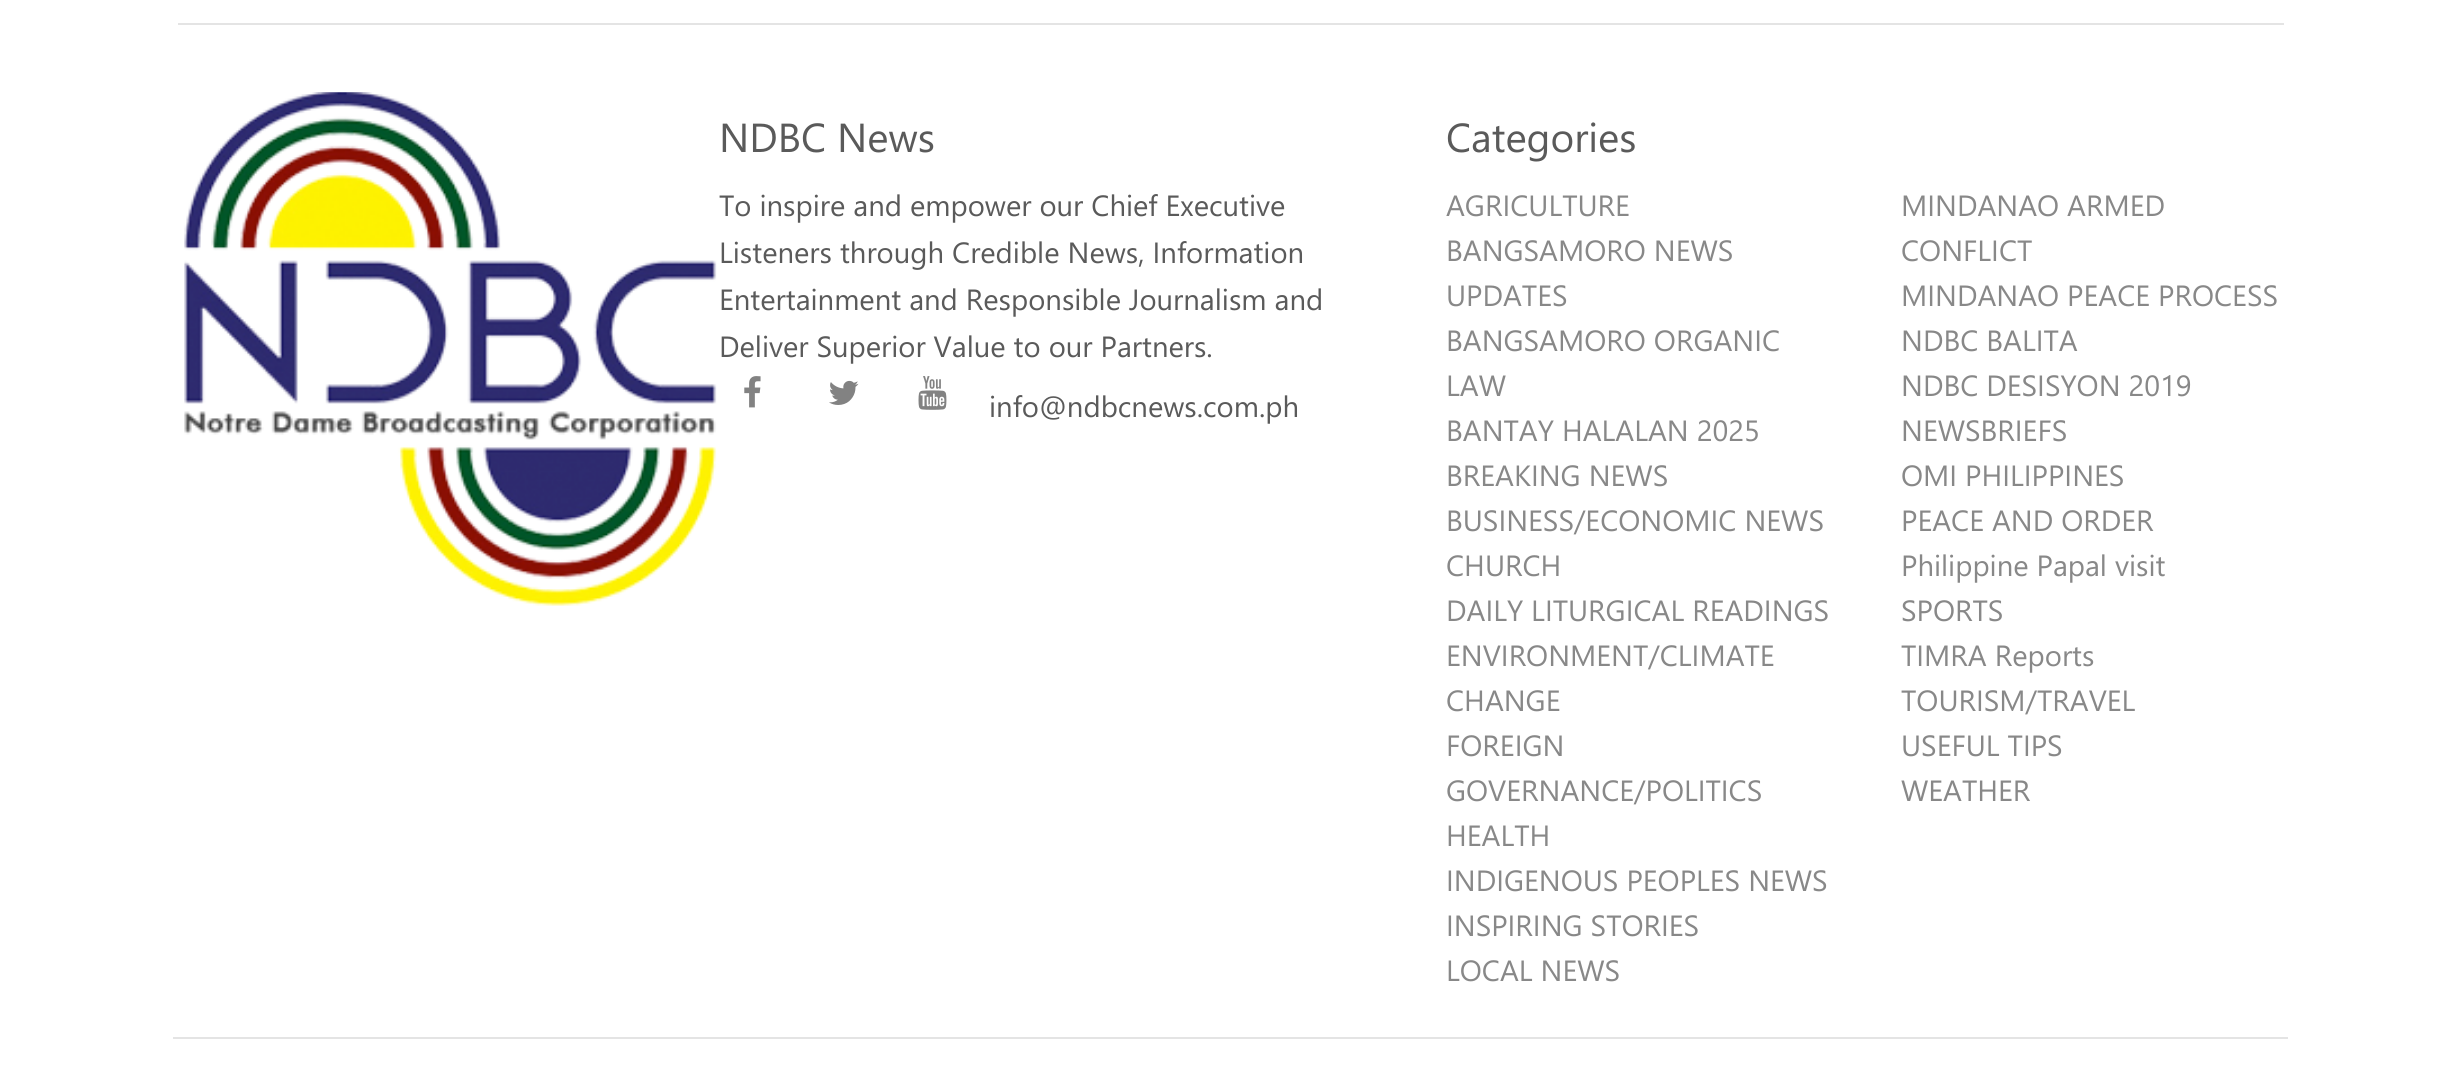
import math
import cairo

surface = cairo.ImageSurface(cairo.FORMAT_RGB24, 2460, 1067)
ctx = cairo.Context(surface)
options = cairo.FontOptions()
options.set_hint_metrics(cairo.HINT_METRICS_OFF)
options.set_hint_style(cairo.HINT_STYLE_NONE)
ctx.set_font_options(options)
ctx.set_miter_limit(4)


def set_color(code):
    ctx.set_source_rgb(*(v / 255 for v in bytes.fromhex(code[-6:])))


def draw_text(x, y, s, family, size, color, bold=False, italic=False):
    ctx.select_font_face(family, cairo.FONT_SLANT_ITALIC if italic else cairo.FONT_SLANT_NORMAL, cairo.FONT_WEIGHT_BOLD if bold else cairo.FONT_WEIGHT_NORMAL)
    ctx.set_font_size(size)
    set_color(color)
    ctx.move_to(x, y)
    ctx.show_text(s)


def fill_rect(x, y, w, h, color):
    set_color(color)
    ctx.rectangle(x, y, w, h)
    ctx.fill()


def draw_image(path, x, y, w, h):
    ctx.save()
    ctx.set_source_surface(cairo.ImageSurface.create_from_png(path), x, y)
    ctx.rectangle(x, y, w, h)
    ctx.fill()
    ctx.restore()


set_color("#ffffff")
ctx.paint()
fill_rect(178, 23, 2106, 2, "#e4e4e4")
draw_image("assets/img1.png", 184, 92, 533, 514)
draw_text(719, 152, "NDBC News", "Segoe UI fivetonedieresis", 40.5, "#5a5a5a")
draw_text(719, 216, "To inspire and empower our Chief Executive", "Segoe UI fivetonedieresis", 29.25, "#5a5a5a")
draw_text(719, 263, "Listeners through Credible News, Information", "Segoe UI fivetonedieresis", 29.25, "#5a5a5a")
draw_text(719, 310, "Entertainment and Responsible Journalism and", "Segoe UI fivetonedieresis", 29.25, "#5a5a5a")
draw_text(719, 357, "Deliver Superior Value to our Partners.", "Segoe UI fivetonedieresis", 29.25, "#5a5a5a")
draw_image("assets/img2.png", 744, 376, 17, 32)
draw_image("assets/img3.png", 829, 380, 30, 25)
draw_image("assets/img4.png", 918, 376, 29, 34)
draw_text(989, 417, "info@ndbcnews.com.ph", "Segoe UI fivetonedieresis", 29.25, "#5a5a5a")
draw_text(1446, 152, "Categories", "Segoe UI fivetonedieresis", 40.5, "#5a5a5a")
draw_text(1446, 216, "AGRICULTURE", "Segoe UI fivetonedieresis", 29.25, "#888888")
draw_text(1446, 261, "BANGSAMORO NEWS", "Segoe UI fivetonedieresis", 29.25, "#888888")
draw_text(1446, 306, "UPDATES", "Segoe UI fivetonedieresis", 29.25, "#888888")
draw_text(1446, 351, "BANGSAMORO ORGANIC", "Segoe UI fivetonedieresis", 29.25, "#888888")
draw_text(1446, 396, "LAW", "Segoe UI fivetonedieresis", 29.25, "#888888")
draw_text(1446, 441, "BANTAY HALALAN 2025", "Segoe UI fivetonedieresis", 29.25, "#888888")
draw_text(1446, 486, "BREAKING NEWS", "Segoe UI fivetonedieresis", 29.25, "#888888")
draw_text(1446, 531, "BUSINESS/ECONOMIC NEWS", "Segoe UI fivetonedieresis", 29.25, "#888888")
draw_text(1446, 576, "CHURCH", "Segoe UI fivetonedieresis", 29.25, "#888888")
draw_text(1446, 621, "DAILY LITURGICAL READINGS", "Segoe UI fivetonedieresis", 29.25, "#888888")
draw_text(1446, 666, "ENVIRONMENT/CLIMATE", "Segoe UI fivetonedieresis", 29.25, "#888888")
draw_text(1446, 711, "CHANGE", "Segoe UI fivetonedieresis", 29.25, "#888888")
draw_text(1446, 756, "FOREIGN", "Segoe UI fivetonedieresis", 29.25, "#888888")
draw_text(1446, 801, "GOVERNANCE/POLITICS", "Segoe UI fivetonedieresis", 29.25, "#888888")
draw_text(1446, 846, "HEALTH", "Segoe UI fivetonedieresis", 29.25, "#888888")
draw_text(1446, 891, "INDIGENOUS PEOPLES NEWS", "Segoe UI fivetonedieresis", 29.25, "#888888")
draw_text(1446, 936, "INSPIRING STORIES", "Segoe UI fivetonedieresis", 29.25, "#888888")
draw_text(1446, 981, "LOCAL NEWS", "Segoe UI fivetonedieresis", 29.25, "#888888")
draw_text(1901, 216, "MINDANAO ARMED", "Segoe UI fivetonedieresis", 29.25, "#888888")
draw_text(1901, 261, "CONFLICT", "Segoe UI fivetonedieresis", 29.25, "#888888")
draw_text(1901, 306, "MINDANAO PEACE PROCESS", "Segoe UI fivetonedieresis", 29.25, "#888888")
draw_text(1901, 351, "NDBC BALITA", "Segoe UI fivetonedieresis", 29.25, "#888888")
draw_text(1901, 396, "NDBC DESISYON 2019", "Segoe UI fivetonedieresis", 29.25, "#888888")
draw_text(1901, 441, "NEWSBRIEFS", "Segoe UI fivetonedieresis", 29.25, "#888888")
draw_text(1901, 486, "OMI PHILIPPINES", "Segoe UI fivetonedieresis", 29.25, "#888888")
draw_text(1901, 531, "PEACE AND ORDER", "Segoe UI fivetonedieresis", 29.25, "#888888")
draw_text(1901, 576, "Philippine Papal visit", "Segoe UI fivetonedieresis", 29.25, "#888888")
draw_text(1901, 621, "SPORTS", "Segoe UI fivetonedieresis", 29.25, "#888888")
draw_text(1901, 666, "TIMRA Reports", "Segoe UI fivetonedieresis", 29.25, "#888888")
draw_text(1901, 711, "TOURISM/TRAVEL", "Segoe UI fivetonedieresis", 29.25, "#888888")
draw_text(1901, 756, "USEFUL TIPS", "Segoe UI fivetonedieresis", 29.25, "#888888")
draw_text(1901, 801, "WEATHER", "Segoe UI fivetonedieresis", 29.25, "#888888")
fill_rect(173, 1037, 2115, 2, "#e4e4e4")
surface.write_to_png("output.png")
